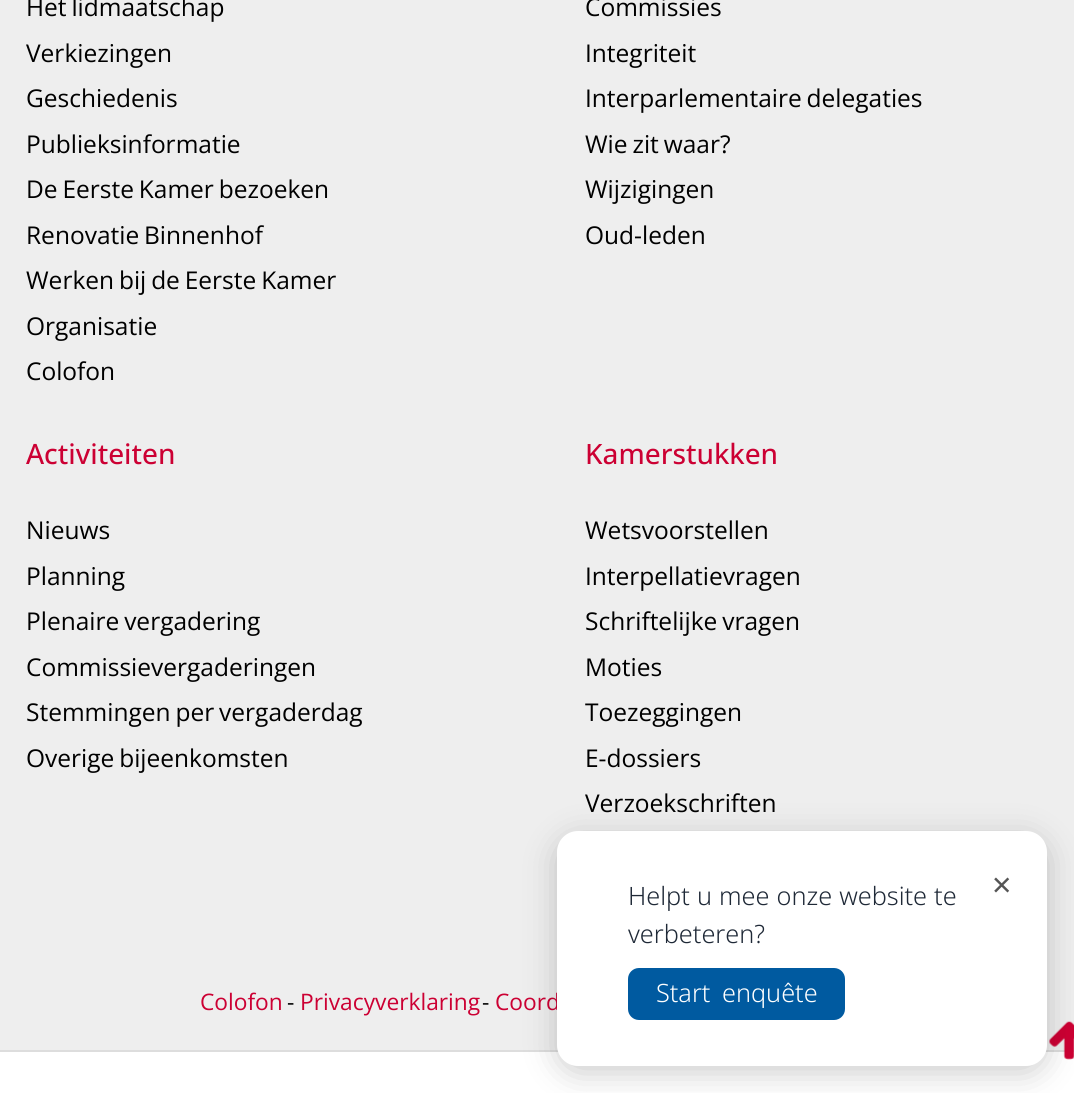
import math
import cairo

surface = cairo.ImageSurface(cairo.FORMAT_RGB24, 1074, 1093)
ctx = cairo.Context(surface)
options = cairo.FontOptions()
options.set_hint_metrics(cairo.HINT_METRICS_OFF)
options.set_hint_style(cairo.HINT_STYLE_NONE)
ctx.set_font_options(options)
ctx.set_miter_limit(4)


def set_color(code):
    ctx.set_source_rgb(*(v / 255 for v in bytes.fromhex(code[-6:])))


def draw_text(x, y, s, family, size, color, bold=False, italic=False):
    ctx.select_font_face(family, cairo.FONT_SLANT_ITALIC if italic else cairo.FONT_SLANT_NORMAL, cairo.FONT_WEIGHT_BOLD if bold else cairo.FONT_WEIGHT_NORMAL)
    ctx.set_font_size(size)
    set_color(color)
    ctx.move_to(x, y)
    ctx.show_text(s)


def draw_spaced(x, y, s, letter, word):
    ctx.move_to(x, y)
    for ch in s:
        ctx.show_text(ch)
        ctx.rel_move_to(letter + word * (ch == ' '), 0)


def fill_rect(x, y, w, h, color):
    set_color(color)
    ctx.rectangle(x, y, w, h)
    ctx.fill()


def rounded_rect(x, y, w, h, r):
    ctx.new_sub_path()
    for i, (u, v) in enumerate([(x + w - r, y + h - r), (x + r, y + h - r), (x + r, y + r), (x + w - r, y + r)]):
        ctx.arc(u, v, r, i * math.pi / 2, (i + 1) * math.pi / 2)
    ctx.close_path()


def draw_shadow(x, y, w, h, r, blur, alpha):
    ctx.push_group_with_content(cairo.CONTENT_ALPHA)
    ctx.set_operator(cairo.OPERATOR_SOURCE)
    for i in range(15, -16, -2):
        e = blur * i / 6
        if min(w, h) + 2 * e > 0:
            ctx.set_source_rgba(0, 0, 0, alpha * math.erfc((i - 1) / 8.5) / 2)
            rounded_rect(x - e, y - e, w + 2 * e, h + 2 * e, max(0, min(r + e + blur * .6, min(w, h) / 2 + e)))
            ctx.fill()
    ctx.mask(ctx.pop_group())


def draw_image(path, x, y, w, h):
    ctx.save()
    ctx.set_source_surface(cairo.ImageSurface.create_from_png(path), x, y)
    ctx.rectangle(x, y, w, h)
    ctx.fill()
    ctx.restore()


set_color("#ffffff")
ctx.paint()
fill_rect(0, 1050, 1074, 2, "#dddddd")
fill_rect(0, 0, 1074, 1050, "#eeeeee")
ctx.select_font_face("Open Sans")
ctx.set_font_size(24.5)
set_color("#000000")
draw_spaced(26, 16, "Het lidmaatschap", 0, -1.5)
draw_text(26, 62, "Verkiezingen", "Open Sans", 24.5, "#000000")
draw_text(26, 107, "Geschiedenis", "Open Sans", 24.5, "#000000")
draw_text(26, 153, "Publieksinformatie", "Open Sans", 24.5, "#000000")
draw_spaced(26, 198, "De Eerste Kamer bezoeken", 0, -1.5)
draw_spaced(26, 244, "Renovatie Binnenhof", 0, -1.5)
draw_spaced(26, 289, "Werken bij de Eerste Kamer", 0, -1.5)
draw_text(26, 335, "Organisatie", "Open Sans", 24.5, "#000000")
draw_text(26, 380, "Colofon", "Open Sans", 24.5, "#000000")
draw_text(585, 16, "Commissies", "Open Sans", 24.5, "#000000")
draw_text(585, 62, "Integriteit", "Open Sans", 24.5, "#000000")
draw_spaced(585, 107, "Interparlementaire delegaties", 0, -1.5)
draw_spaced(585, 153, "Wie zit waar?", 0, -1.5)
draw_text(585, 198, "Wijzigingen", "Open Sans", 24.5, "#000000")
draw_text(585, 244, "Oud-leden", "Open Sans", 24.5, "#000000")
draw_text(26, 464, "Activiteiten", "Open Sans Medium", 28, "#cc0033")
draw_text(26, 539, "Nieuws", "Open Sans", 24.5, "#000000")
draw_text(26, 585, "Planning", "Open Sans", 24.5, "#000000")
draw_spaced(26, 630, "Plenaire vergadering", 0, -1.5)
draw_text(26, 676, "Commissievergaderingen", "Open Sans", 24.5, "#000000")
draw_spaced(26, 721, "Stemmingen per vergaderdag", 0, -1.5)
draw_spaced(26, 767, "Overige bijeenkomsten", 0, -1.5)
draw_text(585, 464, "Kamerstukken", "Open Sans Medium", 28, "#cc0033")
draw_text(585, 539, "Wetsvoorstellen", "Open Sans", 24.5, "#000000")
draw_text(585, 585, "Interpellatievragen", "Open Sans", 24.5, "#000000")
draw_spaced(585, 630, "Schriftelijke vragen", 0, -1.5)
draw_text(585, 676, "Moties", "Open Sans", 24.5, "#000000")
draw_text(585, 721, "Toezeggingen", "Open Sans", 24.5, "#000000")
draw_text(585, 767, "E-dossiers", "Open Sans", 24.5, "#000000")
draw_text(585, 812, "Verzoekschriften", "Open Sans", 24.5, "#000000")
draw_text(200, 1010, "Colofon", "Open Sans", 22.75, "#cc0033")
draw_text(287, 1010, "-", "Open Sans", 22.75, "#0a0a0a")
draw_text(300, 1010, "Privacyverklaring", "Open Sans", 22.75, "#cc0033")
draw_text(482, 1010, "-", "Open Sans", 22.75, "#0a0a0a")
set_color("#cc0033")
draw_spaced(495, 1010, "Coord", 0, -1)
draw_image("assets/img1.png", 1049, 1021, 25, 39)
set_color("#000000")
draw_shadow(557, 838, 490, 235, 21, 16, 0.2)
set_color("#ffffff")
rounded_rect(557, 831, 490, 235, 21)
ctx.fill()
ctx.select_font_face("Noto Sans Light")
ctx.set_font_size(25.25)
set_color("#1f2937")
draw_spaced(628, 905, "Helpt u mee onze website te", 0, 0.5)
draw_text(628, 943, "verbeteren?", "Noto Sans Light", 25.25, "#1f2937")
draw_text(992, 897, "×", "Noto Sans", 34, "#555555")
set_color("#005aa0")
rounded_rect(628, 968, 217, 52, 11)
ctx.fill()
ctx.select_font_face("Noto Sans Light")
ctx.set_font_size(25.25)
set_color("#ffffff")
draw_spaced(656, 1002, "Start enquête", 0, 5)
surface.write_to_png("output.png")
